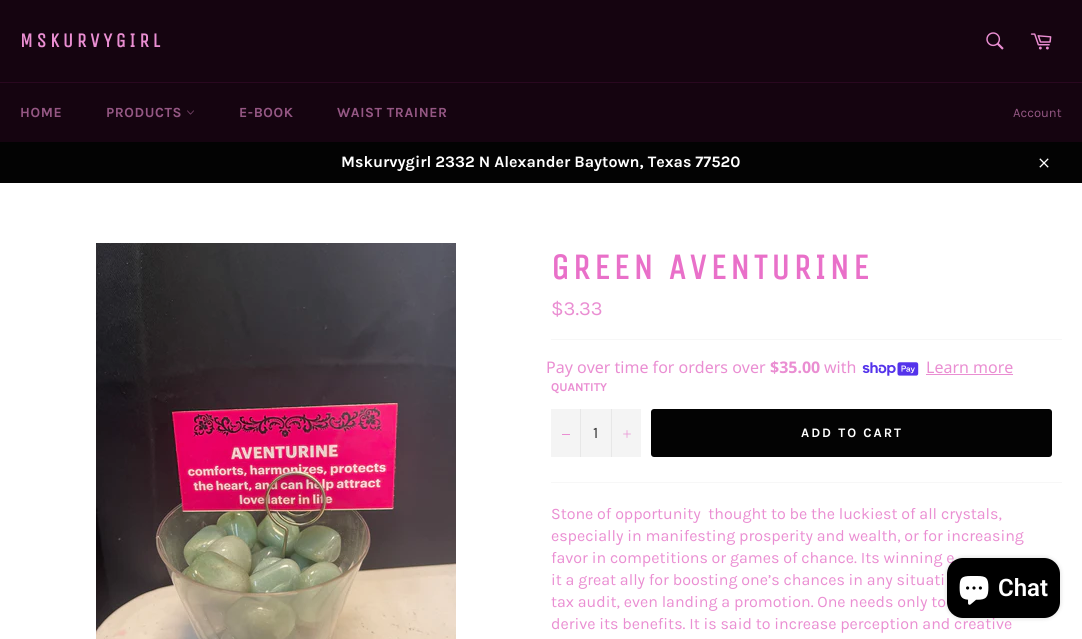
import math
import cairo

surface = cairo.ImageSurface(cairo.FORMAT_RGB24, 1082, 639)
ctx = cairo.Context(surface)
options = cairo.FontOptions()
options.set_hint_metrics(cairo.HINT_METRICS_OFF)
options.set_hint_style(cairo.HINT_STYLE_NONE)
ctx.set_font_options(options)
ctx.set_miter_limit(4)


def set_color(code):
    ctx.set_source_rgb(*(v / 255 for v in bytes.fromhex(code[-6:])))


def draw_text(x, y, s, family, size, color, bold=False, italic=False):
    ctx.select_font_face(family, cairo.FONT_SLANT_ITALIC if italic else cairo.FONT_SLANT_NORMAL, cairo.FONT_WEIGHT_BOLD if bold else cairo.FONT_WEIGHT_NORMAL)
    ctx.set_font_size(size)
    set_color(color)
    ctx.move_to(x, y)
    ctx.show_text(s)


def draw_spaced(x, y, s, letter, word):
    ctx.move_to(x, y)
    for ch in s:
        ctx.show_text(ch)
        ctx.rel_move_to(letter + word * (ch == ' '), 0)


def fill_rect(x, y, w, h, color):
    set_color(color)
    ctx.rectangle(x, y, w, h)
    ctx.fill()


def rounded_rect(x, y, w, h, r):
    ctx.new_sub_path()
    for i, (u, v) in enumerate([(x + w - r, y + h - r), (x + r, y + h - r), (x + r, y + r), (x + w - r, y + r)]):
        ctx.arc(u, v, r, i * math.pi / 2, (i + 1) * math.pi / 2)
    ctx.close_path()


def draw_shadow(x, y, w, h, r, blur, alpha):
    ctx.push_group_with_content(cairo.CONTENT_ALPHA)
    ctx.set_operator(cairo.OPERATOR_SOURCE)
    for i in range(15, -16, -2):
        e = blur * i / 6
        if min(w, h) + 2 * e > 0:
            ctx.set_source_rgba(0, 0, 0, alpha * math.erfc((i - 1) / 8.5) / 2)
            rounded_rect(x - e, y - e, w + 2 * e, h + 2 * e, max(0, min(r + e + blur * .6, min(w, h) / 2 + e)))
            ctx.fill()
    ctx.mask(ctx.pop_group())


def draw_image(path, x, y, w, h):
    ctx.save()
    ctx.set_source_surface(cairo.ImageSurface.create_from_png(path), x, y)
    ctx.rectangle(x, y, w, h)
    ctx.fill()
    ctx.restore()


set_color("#150410")
ctx.paint()
ctx.select_font_face("Unica One", cairo.FONT_SLANT_NORMAL, cairo.FONT_WEIGHT_BOLD)
ctx.set_font_size(20)
set_color("#ea8ed2")
draw_spaced(20, 47, "MSKURVYGIRL", 3.6, 0)
draw_image("assets/img1.png", 986, 32, 18, 18)
draw_image("assets/img2.png", 1030, 33, 22, 17)
fill_rect(0, 82, 1082, 1, "#2a0820")
ctx.select_font_face("Karla", cairo.FONT_SLANT_NORMAL, cairo.FONT_WEIGHT_BOLD)
ctx.set_font_size(14)
set_color("#955784")
draw_spaced(20, 117, "HOME", 0.6, 0)
draw_spaced(106, 117, "PRODUCTS", 0.6, 0)
draw_image("assets/img3.png", 187, 110, 7, 5)
draw_spaced(239, 117, "E-BOOK", 0.6, 0)
draw_spaced(337, 117, "WAIST TRAINER", 0.6, 0)
draw_text(1013, 117, "Account", "Karla", 13, "#955784")
fill_rect(0, 142, 1082, 41, "#030303")
draw_text(341, 167, "Mskurvygirl 2332 N Alexander Baytown, Texas 77520", "Karla", 16, "#ffffff", bold=True)
draw_image("assets/img4.png", 1039, 158, 10, 10)
fill_rect(0, 183, 1082, 456, "#ffffff")
draw_image("assets/img5.png", 96, 243, 360, 396)
ctx.select_font_face("Unica One", cairo.FONT_SLANT_NORMAL, cairo.FONT_WEIGHT_BOLD)
ctx.set_font_size(36)
set_color("#e970c9")
draw_spaced(551, 279, "GREEN AVENTURINE", 3.6, 0)
draw_text(551, 315, "$3.33", "Karla", 20, "#ea8ed2")
fill_rect(551, 339, 511, 1, "#f7f7f7")
draw_text(546, 373, "Pay over time for orders over", "Noto Sans", 16, "#ea8ed2")
draw_text(770, 373, "$35.00", "Noto Sans", 16, "#ea8ed2", bold=True)
draw_text(824, 373, "with", "Noto Sans", 16, "#ea8ed2")
draw_image("assets/img6.png", 862, 362, 57, 14)
draw_text(926, 373, "Learn more", "Noto Sans", 16, "#ea8ed2")
fill_rect(926, 374, 87, 1, "#ea8ed2")
draw_text(551, 391, "QUANTITY", "Karla", 12, "#ea8ed2", bold=True)
fill_rect(551, 409, 90, 48, "#f4f4f4")
fill_rect(580, 409, 1, 48, "#e7e7e7")
fill_rect(562, 434, 8, 1, "#ea8ed2")
draw_text(593, 438, "1", "Karla", 16, "#333333")
fill_rect(611, 409, 1, 48, "#e7e7e7")
draw_image("assets/img7.png", 623, 430, 8, 8)
set_color("#030303")
rounded_rect(651, 409, 401, 48, 3)
ctx.fill()
ctx.select_font_face("Karla", cairo.FONT_SLANT_NORMAL, cairo.FONT_WEIGHT_BOLD)
ctx.set_font_size(13)
set_color("#ffffff")
draw_spaced(801, 437, "ADD TO CART", 2, 0)
fill_rect(551, 482, 511, 1, "#f7f7f7")
draw_text(551, 519, "Stone of opportunity  thought to be the luckiest of all crystals,", "Karla", 16, "#ea8ed2")
draw_text(551, 541, "especially in manifesting prosperity and wealth, or for increasing", "Karla", 16, "#ea8ed2")
draw_text(551, 563, "favor in competitions or games of chance. Its winning e", "Karla", 16, "#ea8ed2")
draw_text(551, 585, "it a great ally for boosting one’s chances in any situati", "Karla", 16, "#ea8ed2")
draw_text(551, 607, "tax audit, even landing a promotion. One needs only to", "Karla", 16, "#ea8ed2")
draw_text(551, 629, "derive its benefits. It is said to increase perception and creative", "Karla", 16, "#ea8ed2")
set_color("#000000")
draw_shadow(947, 558, 113, 60, 16, 2.5, 0.15)
set_color("#000000")
rounded_rect(947, 558, 113, 60, 16)
ctx.fill()
draw_image("assets/img8.png", 959, 576, 30, 29)
draw_text(998, 596, "Chat", "Roboto SemiBold", 24, "#ffffff")
surface.write_to_png("output.png")
